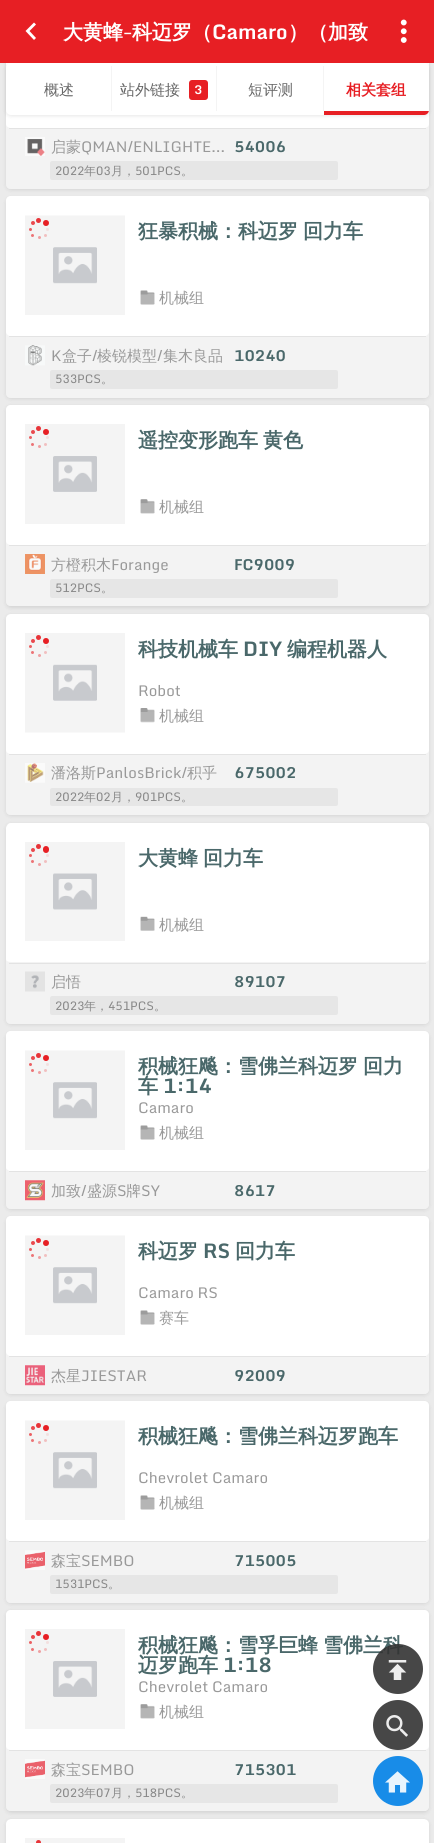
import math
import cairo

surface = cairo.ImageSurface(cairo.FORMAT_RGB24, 434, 1843)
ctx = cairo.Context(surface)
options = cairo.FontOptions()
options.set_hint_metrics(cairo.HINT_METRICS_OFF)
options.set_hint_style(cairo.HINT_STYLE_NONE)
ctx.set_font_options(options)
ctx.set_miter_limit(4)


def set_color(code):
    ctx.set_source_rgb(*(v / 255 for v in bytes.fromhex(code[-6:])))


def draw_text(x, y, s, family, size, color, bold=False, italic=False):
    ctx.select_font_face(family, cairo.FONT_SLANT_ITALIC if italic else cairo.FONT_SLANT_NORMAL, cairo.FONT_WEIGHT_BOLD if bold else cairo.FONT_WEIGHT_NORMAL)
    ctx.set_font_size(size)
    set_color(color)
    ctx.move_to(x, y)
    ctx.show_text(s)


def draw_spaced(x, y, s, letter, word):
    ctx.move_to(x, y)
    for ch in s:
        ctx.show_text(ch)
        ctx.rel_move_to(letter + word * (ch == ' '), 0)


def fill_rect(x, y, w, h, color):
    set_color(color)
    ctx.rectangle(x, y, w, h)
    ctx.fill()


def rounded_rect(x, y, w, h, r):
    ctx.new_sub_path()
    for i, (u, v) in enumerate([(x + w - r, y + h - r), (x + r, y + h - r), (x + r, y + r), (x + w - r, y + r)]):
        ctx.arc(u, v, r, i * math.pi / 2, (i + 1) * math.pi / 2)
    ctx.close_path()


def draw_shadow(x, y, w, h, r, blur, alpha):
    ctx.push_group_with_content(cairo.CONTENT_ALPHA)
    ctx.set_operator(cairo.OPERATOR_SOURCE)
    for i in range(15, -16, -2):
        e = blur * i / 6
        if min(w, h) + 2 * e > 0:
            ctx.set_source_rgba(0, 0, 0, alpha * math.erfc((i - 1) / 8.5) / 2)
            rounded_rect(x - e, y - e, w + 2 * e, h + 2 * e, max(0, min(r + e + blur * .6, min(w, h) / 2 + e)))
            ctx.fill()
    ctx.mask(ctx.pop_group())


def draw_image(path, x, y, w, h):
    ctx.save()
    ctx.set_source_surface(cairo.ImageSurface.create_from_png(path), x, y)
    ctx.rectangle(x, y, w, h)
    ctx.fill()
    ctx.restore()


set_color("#ebebeb")
ctx.paint()
set_color("#000000")
draw_shadow(6, -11, 423, 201, 5, 2, 0.1)
set_color("#f3f3f3")
rounded_rect(6, -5, 423, 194, 5)
ctx.fill()
set_color("#ffffff")
ctx.new_path()
ctx.move_to(11, -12)
ctx.line_to(424, -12)
ctx.curve_to(426, -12, 427, -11, 428, -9)
ctx.line_to(429, -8)
ctx.line_to(429, 124)
ctx.curve_to(429, 126, 427, 128, 424, 128)
ctx.line_to(11, 128)
ctx.curve_to(8, 128, 6, 126, 6, 124)
ctx.line_to(6, -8)
ctx.line_to(7, -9)
ctx.curve_to(8, -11, 9, -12, 11, -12)
ctx.close_path()
ctx.fill()
set_color("#000000")
draw_shadow(6, 64, 423, 52, 5, 2, 0.1)
fill_rect(0, 0, 434, 63, "#e71f24")
set_color("#ffffff")
ctx.new_path()
ctx.move_to(36, 24.5)
ctx.line_to(29.5, 31)
ctx.line_to(36, 38)
ctx.line_to(34, 40)
ctx.line_to(25.5, 31)
ctx.line_to(34, 22.5)
ctx.close_path()
ctx.fill()
draw_text(63, 39, "大黄蜂", "WenQuanYi Zen Hei", 20, "#ffffff", bold=True)
draw_text(123, 39, "-", "Monda", 20, "#ffffff", bold=True)
draw_text(132, 39, "科迈罗（", "WenQuanYi Zen Hei", 20, "#ffffff", bold=True)
draw_text(212, 39, "Camaro", "Monda", 20, "#ffffff", bold=True)
draw_text(288, 39, "）（加致", "WenQuanYi Zen Hei", 20, "#ffffff", bold=True)
draw_image("assets/img1.png", 400, 19, 7, 24)
rounded_rect(6, 63, 423, 52, 5)
ctx.fill()
draw_text(44, 95, "概述", "WenQuanYi Zen Hei Medium", 15, "#666666")
fill_rect(111, 66, 1, 45, "#f4f4f4")
draw_text(120, 95, "站外链接", "WenQuanYi Zen Hei Medium", 15, "#666666")
set_color("#e71f24")
rounded_rect(189, 80, 19, 20, 3)
ctx.fill()
draw_text(194, 94, "3", "Monda", 12, "#ffffff", bold=True)
fill_rect(216, 66, 1, 45, "#f4f4f4")
draw_text(248, 95, "短评测", "WenQuanYi Zen Hei Medium", 15, "#666666")
fill_rect(323, 66, 1, 45, "#f4f4f4")
set_color("#ffffff")
ctx.new_path()
ctx.move_to(324, 63)
ctx.line_to(424, 63)
ctx.curve_to(427, 63, 429, 65, 429, 68)
ctx.line_to(429, 110)
ctx.curve_to(429, 113, 427, 115, 424, 115)
ctx.line_to(324, 115)
ctx.close_path()
ctx.fill()
ctx.save()
rounded_rect(6, 63, 423, 52, 5)
ctx.clip()
fill_rect(324, 111, 105, 4, "#e71f24")
ctx.restore()
draw_text(346, 95, "相关套组", "WenQuanYi Zen Hei", 15, "#e71f24", bold=True)
fill_rect(9, 128, 417, 1, "#e3e3e3")
set_color("#f3f3f3")
ctx.new_path()
ctx.move_to(6, 129)
ctx.line_to(429, 129)
ctx.line_to(429, 184)
ctx.curve_to(429, 187, 427, 189, 424, 189)
ctx.line_to(11, 189)
ctx.curve_to(8, 189, 6, 187, 6, 184)
ctx.close_path()
ctx.fill()
draw_image("assets/img2.png", 25, 137, 20, 19)
draw_text(51, 152, "启蒙", "WenQuanYi Zen Hei Medium", 15, "#999999")
draw_text(81, 152, "QMAN/ENLIGHTE…", "Monda", 15, "#999999")
draw_text(234, 152, "54006", "Monda", 15, "#4a686a", bold=True)
set_color("#e6e6e6")
rounded_rect(50, 161, 288, 19, 2)
ctx.fill()
draw_text(55, 175, "2022", "Monda", 12, "#888888")
draw_text(84, 175, "年", "WenQuanYi Zen Hei Medium", 12, "#888888")
draw_text(96, 175, "03", "Monda", 12, "#888888")
draw_text(111, 175, "月，", "WenQuanYi Zen Hei Medium", 12, "#888888")
draw_text(135, 175, "501PCS", "Monda", 12, "#888888")
draw_text(181, 175, "。", "WenQuanYi Zen Hei Medium", 12, "#888888")
set_color("#000000")
draw_shadow(6, 198, 423, 201, 5, 2, 0.1)
set_color("#f3f3f3")
rounded_rect(6, 196, 423, 202, 5)
ctx.fill()
fill_rect(9, 336, 417, 1, "#e3e3e3")
set_color("#ffffff")
ctx.new_path()
ctx.move_to(11, 196)
ctx.line_to(424, 196)
ctx.curve_to(427, 196, 429, 198, 429, 201)
ctx.line_to(429, 332)
ctx.curve_to(429, 334, 427, 335, 426, 336)
ctx.line_to(9, 336)
ctx.curve_to(8, 335, 6, 334, 6, 332)
ctx.line_to(6, 201)
ctx.curve_to(6, 198, 8, 196, 11, 196)
ctx.close_path()
ctx.fill()
draw_image("assets/img3.png", 25, 215, 100, 100)
set_color("#f3dfdf")
ctx.arc(47.5, 229.5, 1.5, 0, 2 * math.pi)
ctx.fill()
set_color("#f1bfc0")
ctx.arc(45.5, 235.5, 1.5, 0, 2 * math.pi)
ctx.fill()
set_color("#ef9fa1")
ctx.arc(39.5, 237.5, 1.5, 0, 2 * math.pi)
ctx.fill()
set_color("#ec7477")
ctx.arc(32.5, 235.5, 1.5, 0, 2 * math.pi)
ctx.fill()
set_color("#eb5f62")
ctx.arc(30.5, 229.5, 1.5, 0, 2 * math.pi)
ctx.fill()
set_color("#ea4a4e")
ctx.arc(33, 223, 2, 0, 2 * math.pi)
ctx.fill()
set_color("#e83439")
ctx.arc(38.5, 220.5, 2.5, 0, 2 * math.pi)
ctx.fill()
set_color("#e71f24")
ctx.arc(46, 223, 3, 0, 2 * math.pi)
ctx.fill()
ctx.select_font_face("WenQuanYi Zen Hei", cairo.FONT_SLANT_NORMAL, cairo.FONT_WEIGHT_BOLD)
ctx.set_font_size(20)
set_color("#4a686a")
draw_spaced(138, 238, "狂暴积械：科迈罗 回力车", 0, -1)
draw_image("assets/img4.png", 140, 290, 15, 15)
draw_text(159, 303, "机械组", "WenQuanYi Zen Hei Medium", 15, "#999999")
set_color("#f3f3f3")
ctx.new_path()
ctx.move_to(6, 338)
ctx.line_to(429, 338)
ctx.line_to(429, 393)
ctx.curve_to(429, 396, 427, 398, 424, 398)
ctx.line_to(11, 398)
ctx.curve_to(8, 398, 6, 396, 6, 393)
ctx.close_path()
ctx.fill()
draw_image("assets/img5.png", 25, 345, 20, 21)
draw_text(51, 361, "K", "Monda", 15, "#999999")
draw_text(62, 361, "盒子", "WenQuanYi Zen Hei Medium", 15, "#999999")
draw_text(92, 361, "/", "Monda", 15, "#999999")
draw_text(97, 361, "棱锐模型", "WenQuanYi Zen Hei Medium", 15, "#999999")
draw_text(157, 361, "/", "Monda", 15, "#999999")
draw_text(163, 361, "集木良品", "WenQuanYi Zen Hei Medium", 15, "#999999")
draw_text(234, 361, "10240", "Monda", 15, "#4a686a", bold=True)
set_color("#e6e6e6")
rounded_rect(50, 370, 288, 19, 2)
ctx.fill()
draw_text(55, 383, "533PCS", "Monda", 12, "#888888")
draw_text(101, 383, "。", "WenQuanYi Zen Hei Medium", 12, "#888888")
set_color("#000000")
draw_shadow(6, 406, 423, 202, 5, 2, 0.1)
set_color("#f3f3f3")
rounded_rect(6, 405, 423, 201, 5)
ctx.fill()
fill_rect(9, 545, 417, 1, "#e3e3e3")
set_color("#ffffff")
ctx.new_path()
ctx.move_to(11, 405)
ctx.curve_to(8, 405, 6, 407, 6, 410)
ctx.line_to(6, 541)
ctx.curve_to(6, 543, 8, 545, 11, 545)
ctx.line_to(424, 545)
ctx.curve_to(427, 545, 429, 543, 429, 541)
ctx.line_to(429, 410)
ctx.curve_to(429, 407, 427, 405, 424, 405)
ctx.close_path()
ctx.fill()
draw_image("assets/img6.png", 25, 424, 100, 100)
set_color("#f3dfdf")
ctx.arc(47.5, 437.5, 1.5, 0, 2 * math.pi)
ctx.fill()
set_color("#f1bfc0")
ctx.arc(45.5, 444.5, 1.5, 0, 2 * math.pi)
ctx.fill()
set_color("#ef9fa1")
ctx.arc(39.5, 446.5, 1.5, 0, 2 * math.pi)
ctx.fill()
set_color("#ec7477")
ctx.arc(32.5, 444.5, 1.5, 0, 2 * math.pi)
ctx.fill()
set_color("#eb5f62")
ctx.arc(30.5, 437.5, 1.5, 0, 2 * math.pi)
ctx.fill()
set_color("#ea4a4e")
ctx.arc(33, 432, 2, 0, 2 * math.pi)
ctx.fill()
set_color("#e83439")
ctx.arc(38.5, 428.5, 2.5, 0, 2 * math.pi)
ctx.fill()
set_color("#e71f24")
ctx.arc(46, 432, 3, 0, 2 * math.pi)
ctx.fill()
ctx.select_font_face("WenQuanYi Zen Hei", cairo.FONT_SLANT_NORMAL, cairo.FONT_WEIGHT_BOLD)
ctx.set_font_size(20)
set_color("#4a686a")
draw_spaced(138, 447, "遥控变形跑车 黄色", 0, -1)
draw_image("assets/img7.png", 140, 499, 15, 15)
draw_text(159, 512, "机械组", "WenQuanYi Zen Hei Medium", 15, "#999999")
set_color("#f3f3f3")
ctx.new_path()
ctx.move_to(6, 546)
ctx.line_to(429, 546)
ctx.line_to(429, 601)
ctx.curve_to(429, 604, 427, 606, 424, 606)
ctx.line_to(11, 606)
ctx.curve_to(8, 606, 6, 604, 6, 601)
ctx.close_path()
ctx.fill()
draw_image("assets/img8.png", 25, 554, 20, 20)
draw_text(51, 570, "方橙积木", "WenQuanYi Zen Hei Medium", 15, "#999999")
draw_text(111, 570, "Forange", "Monda", 15, "#999999")
draw_text(234, 570, "FC9009", "Monda", 15, "#4a686a", bold=True)
set_color("#e6e6e6")
rounded_rect(50, 579, 288, 19, 2)
ctx.fill()
draw_text(55, 592, "512PCS", "Monda", 12, "#888888")
draw_text(101, 592, "。", "WenQuanYi Zen Hei Medium", 12, "#888888")
set_color("#000000")
draw_shadow(6, 615, 423, 201, 5, 2, 0.1)
set_color("#f3f3f3")
rounded_rect(6, 614, 423, 201, 5)
ctx.fill()
fill_rect(9, 754, 417, 1, "#e3e3e3")
set_color("#ffffff")
ctx.new_path()
ctx.move_to(11, 614)
ctx.line_to(424, 614)
ctx.curve_to(425, 614, 427, 615, 427, 615)
ctx.curve_to(428, 616, 429, 617, 429, 619)
ctx.line_to(429, 750)
ctx.curve_to(429, 752, 427, 754, 424, 754)
ctx.line_to(11, 754)
ctx.curve_to(8, 754, 6, 752, 6, 750)
ctx.line_to(6, 619)
ctx.curve_to(6, 617, 7, 616, 8, 615)
ctx.curve_to(8, 615, 10, 614, 11, 614)
ctx.close_path()
ctx.fill()
draw_image("assets/img9.png", 25, 633, 100, 100)
set_color("#f3dfdf")
ctx.arc(47.5, 646.5, 1.5, 0, 2 * math.pi)
ctx.fill()
set_color("#f1bfc0")
ctx.arc(45.5, 652.5, 1.5, 0, 2 * math.pi)
ctx.fill()
set_color("#ef9fa1")
ctx.arc(39.5, 655.5, 1.5, 0, 2 * math.pi)
ctx.fill()
set_color("#ec7477")
ctx.arc(32.5, 652.5, 1.5, 0, 2 * math.pi)
ctx.fill()
set_color("#eb5f62")
ctx.arc(30.5, 646.5, 1.5, 0, 2 * math.pi)
ctx.fill()
set_color("#ea4a4e")
ctx.arc(33, 641, 2, 0, 2 * math.pi)
ctx.fill()
set_color("#e83439")
ctx.arc(38.5, 637.5, 2.5, 0, 2 * math.pi)
ctx.fill()
set_color("#e71f24")
ctx.arc(46, 641, 3, 0, 2 * math.pi)
ctx.fill()
draw_text(138, 656, "科技机械车", "WenQuanYi Zen Hei", 20, "#4a686a", bold=True)
draw_text(243, 656, "DIY", "Monda", 20, "#4a686a", bold=True)
draw_text(287, 656, "编程机器人", "WenQuanYi Zen Hei", 20, "#4a686a", bold=True)
draw_text(138, 696, "Robot", "Monda", 15, "#999999")
draw_image("assets/img10.png", 140, 708, 15, 15)
draw_text(159, 721, "机械组", "WenQuanYi Zen Hei Medium", 15, "#999999")
set_color("#f3f3f3")
ctx.new_path()
ctx.move_to(6, 755)
ctx.line_to(429, 755)
ctx.line_to(429, 810)
ctx.curve_to(429, 813, 427, 815, 424, 815)
ctx.line_to(11, 815)
ctx.curve_to(8, 815, 6, 813, 6, 810)
ctx.close_path()
ctx.fill()
draw_image("assets/img11.png", 25, 763, 20, 20)
draw_text(51, 778, "潘洛斯", "WenQuanYi Zen Hei Medium", 15, "#999999")
draw_text(96, 778, "PanlosBrick/", "Monda", 15, "#999999")
draw_text(187, 778, "积乎", "WenQuanYi Zen Hei Medium", 15, "#999999")
draw_text(234, 778, "675002", "Monda", 15, "#4a686a", bold=True)
set_color("#e6e6e6")
rounded_rect(50, 788, 288, 18, 2)
ctx.fill()
draw_text(55, 801, "2022", "Monda", 12, "#888888")
draw_text(84, 801, "年", "WenQuanYi Zen Hei Medium", 12, "#888888")
draw_text(96, 801, "02", "Monda", 12, "#888888")
draw_text(111, 801, "月，", "WenQuanYi Zen Hei Medium", 12, "#888888")
draw_text(135, 801, "901PCS", "Monda", 12, "#888888")
draw_text(181, 801, "。", "WenQuanYi Zen Hei Medium", 12, "#888888")
set_color("#000000")
draw_shadow(6, 824, 423, 201, 5, 2, 0.1)
set_color("#f3f3f3")
rounded_rect(6, 823, 423, 201, 5)
ctx.fill()
fill_rect(9, 963, 417, 1, "#e3e3e3")
set_color("#ffffff")
ctx.new_path()
ctx.move_to(11, 823)
ctx.line_to(424, 823)
ctx.curve_to(426, 823, 427, 824, 428, 826)
ctx.line_to(429, 828)
ctx.line_to(429, 959)
ctx.curve_to(429, 961, 427, 962, 424, 962)
ctx.line_to(11, 962)
ctx.curve_to(8, 962, 6, 961, 6, 959)
ctx.line_to(6, 828)
ctx.line_to(7, 826)
ctx.curve_to(8, 824, 9, 823, 11, 823)
ctx.close_path()
ctx.fill()
draw_image("assets/img12.png", 25, 842, 100, 99)
set_color("#f3dfdf")
ctx.arc(47.5, 855.5, 1.5, 0, 2 * math.pi)
ctx.fill()
set_color("#f1bfc0")
ctx.arc(45.5, 861.5, 1.5, 0, 2 * math.pi)
ctx.fill()
set_color("#ef9fa1")
ctx.arc(39.5, 864.5, 1.5, 0, 2 * math.pi)
ctx.fill()
set_color("#ec7477")
ctx.arc(32.5, 861.5, 1.5, 0, 2 * math.pi)
ctx.fill()
set_color("#eb5f62")
ctx.arc(30.5, 855.5, 1.5, 0, 2 * math.pi)
ctx.fill()
set_color("#ea4a4e")
ctx.arc(33, 850, 2, 0, 2 * math.pi)
ctx.fill()
set_color("#e83439")
ctx.arc(38.5, 846.5, 2.5, 0, 2 * math.pi)
ctx.fill()
set_color("#e71f24")
rounded_rect(43, 846, 6, 7, 3)
ctx.fill()
ctx.select_font_face("WenQuanYi Zen Hei", cairo.FONT_SLANT_NORMAL, cairo.FONT_WEIGHT_BOLD)
ctx.set_font_size(20)
set_color("#4a686a")
draw_spaced(138, 865, "大黄蜂 回力车", 0, -1)
draw_image("assets/img13.png", 140, 916, 15, 15)
draw_text(159, 930, "机械组", "WenQuanYi Zen Hei Medium", 15, "#999999")
set_color("#f3f3f3")
ctx.new_path()
ctx.move_to(6, 964)
ctx.line_to(429, 964)
ctx.line_to(429, 1019)
ctx.curve_to(429, 1022, 427, 1024, 424, 1024)
ctx.line_to(11, 1024)
ctx.curve_to(8, 1024, 6, 1022, 6, 1019)
ctx.close_path()
ctx.fill()
draw_image("assets/img14.png", 25, 971, 20, 21)
draw_text(51, 987, "启悟", "WenQuanYi Zen Hei Medium", 15, "#999999")
draw_text(234, 987, "89107", "Monda", 15, "#4a686a", bold=True)
set_color("#e6e6e6")
rounded_rect(50, 996, 288, 19, 2)
ctx.fill()
draw_text(55, 1010, "2023", "Monda", 12, "#888888")
draw_text(84, 1010, "年，", "WenQuanYi Zen Hei Medium", 12, "#888888")
draw_text(108, 1010, "451PCS", "Monda", 12, "#888888")
draw_text(154, 1010, "。", "WenQuanYi Zen Hei Medium", 12, "#888888")
set_color("#000000")
draw_shadow(6, 1033, 423, 177, 5, 2, 0.1)
set_color("#f3f3f3")
rounded_rect(6, 1031, 423, 178, 5)
ctx.fill()
fill_rect(9, 1171, 417, 1, "#e3e3e3")
set_color("#ffffff")
ctx.new_path()
ctx.move_to(11, 1031)
ctx.line_to(424, 1031)
ctx.curve_to(427, 1031, 429, 1033, 429, 1036)
ctx.line_to(429, 1168)
ctx.curve_to(429, 1169, 427, 1170, 426, 1171)
ctx.line_to(9, 1171)
ctx.curve_to(8, 1170, 6, 1169, 6, 1168)
ctx.line_to(6, 1036)
ctx.curve_to(6, 1033, 8, 1031, 11, 1031)
ctx.close_path()
ctx.fill()
draw_image("assets/img3.png", 25, 1050, 100, 100)
set_color("#f3dfdf")
ctx.arc(47.5, 1064.5, 1.5, 0, 2 * math.pi)
ctx.fill()
set_color("#f1bfc0")
ctx.arc(45.5, 1070.5, 1.5, 0, 2 * math.pi)
ctx.fill()
set_color("#ef9fa1")
ctx.arc(39.5, 1072.5, 1.5, 0, 2 * math.pi)
ctx.fill()
set_color("#ec7477")
ctx.arc(32.5, 1070.5, 1.5, 0, 2 * math.pi)
ctx.fill()
set_color("#eb5f62")
ctx.arc(30.5, 1064.5, 1.5, 0, 2 * math.pi)
ctx.fill()
set_color("#ea4a4e")
ctx.arc(33, 1058, 2, 0, 2 * math.pi)
ctx.fill()
set_color("#e83439")
ctx.arc(38.5, 1055.5, 2.5, 0, 2 * math.pi)
ctx.fill()
set_color("#e71f24")
ctx.arc(46, 1058, 3, 0, 2 * math.pi)
ctx.fill()
ctx.select_font_face("WenQuanYi Zen Hei", cairo.FONT_SLANT_NORMAL, cairo.FONT_WEIGHT_BOLD)
ctx.set_font_size(20)
set_color("#4a686a")
draw_spaced(138, 1073, "积械狂飚：雪佛兰科迈罗 回力", 0, -1)
draw_text(138, 1093, "车", "WenQuanYi Zen Hei", 20, "#4a686a", bold=True)
draw_text(163, 1093, "1:14", "Monda", 20, "#4a686a", bold=True)
draw_text(138, 1113, "Camaro", "Monda", 15, "#999999")
draw_image("assets/img4.png", 140, 1125, 15, 15)
draw_text(159, 1138, "机械组", "WenQuanYi Zen Hei Medium", 15, "#999999")
set_color("#f3f3f3")
ctx.new_path()
ctx.move_to(6, 1173)
ctx.line_to(429, 1173)
ctx.line_to(429, 1204)
ctx.curve_to(429, 1207, 427, 1209, 424, 1209)
ctx.line_to(11, 1209)
ctx.curve_to(8, 1209, 6, 1207, 6, 1204)
ctx.close_path()
ctx.fill()
draw_image("assets/img15.png", 25, 1180, 20, 21)
draw_text(51, 1196, "加致", "WenQuanYi Zen Hei Medium", 15, "#999999")
draw_text(81, 1196, "/", "Monda", 15, "#999999")
draw_text(87, 1196, "盛源", "WenQuanYi Zen Hei Medium", 15, "#999999")
draw_text(117, 1196, "S", "Monda", 15, "#999999")
draw_text(126, 1196, "牌", "WenQuanYi Zen Hei Medium", 15, "#999999")
draw_text(141, 1196, "SY", "Monda", 15, "#999999")
draw_text(234, 1196, "8617", "Monda", 15, "#4a686a", bold=True)
set_color("#000000")
draw_shadow(6, 1218, 423, 177, 5, 2, 0.1)
set_color("#f3f3f3")
rounded_rect(6, 1216, 423, 178, 5)
ctx.fill()
fill_rect(9, 1356, 417, 1, "#e3e3e3")
set_color("#ffffff")
ctx.new_path()
ctx.move_to(11, 1216)
ctx.line_to(424, 1216)
ctx.curve_to(427, 1216, 429, 1218, 429, 1221)
ctx.line_to(429, 1352)
ctx.curve_to(429, 1354, 427, 1355, 426, 1356)
ctx.line_to(9, 1356)
ctx.curve_to(8, 1355, 6, 1354, 6, 1352)
ctx.line_to(6, 1221)
ctx.curve_to(6, 1218, 8, 1216, 11, 1216)
ctx.close_path()
ctx.fill()
draw_image("assets/img3.png", 25, 1235, 100, 100)
set_color("#f3dfdf")
ctx.arc(47.5, 1249.5, 1.5, 0, 2 * math.pi)
ctx.fill()
set_color("#f1bfc0")
ctx.arc(45.5, 1255.5, 1.5, 0, 2 * math.pi)
ctx.fill()
set_color("#ef9fa1")
ctx.arc(39.5, 1257.5, 1.5, 0, 2 * math.pi)
ctx.fill()
set_color("#ec7477")
ctx.arc(32.5, 1255.5, 1.5, 0, 2 * math.pi)
ctx.fill()
set_color("#eb5f62")
ctx.arc(30.5, 1249.5, 1.5, 0, 2 * math.pi)
ctx.fill()
set_color("#ea4a4e")
ctx.arc(33, 1243, 2, 0, 2 * math.pi)
ctx.fill()
set_color("#e83439")
ctx.arc(38.5, 1240.5, 2.5, 0, 2 * math.pi)
ctx.fill()
set_color("#e71f24")
ctx.arc(46, 1243, 3, 0, 2 * math.pi)
ctx.fill()
draw_text(138, 1258, "科迈罗", "WenQuanYi Zen Hei", 20, "#4a686a", bold=True)
draw_text(203, 1258, "RS", "Monda", 20, "#4a686a", bold=True)
draw_text(235, 1258, "回力车", "WenQuanYi Zen Hei", 20, "#4a686a", bold=True)
draw_text(138, 1298, "Camaro RS", "Monda", 15, "#999999")
draw_image("assets/img4.png", 140, 1310, 15, 15)
draw_text(159, 1323, "赛车", "WenQuanYi Zen Hei Medium", 15, "#999999")
set_color("#f3f3f3")
ctx.new_path()
ctx.move_to(6, 1358)
ctx.line_to(429, 1358)
ctx.line_to(429, 1389)
ctx.curve_to(429, 1392, 427, 1394, 424, 1394)
ctx.line_to(11, 1394)
ctx.curve_to(8, 1394, 6, 1392, 6, 1389)
ctx.close_path()
ctx.fill()
draw_image("assets/img16.png", 25, 1365, 20, 21)
draw_text(51, 1381, "杰星", "WenQuanYi Zen Hei Medium", 15, "#999999")
draw_text(81, 1381, "JIESTAR", "Monda", 15, "#999999")
draw_text(234, 1381, "92009", "Monda", 15, "#4a686a", bold=True)
set_color("#000000")
draw_shadow(6, 1403, 423, 201, 5, 2, 0.1)
set_color("#f3f3f3")
rounded_rect(6, 1401, 423, 202, 5)
ctx.fill()
fill_rect(9, 1541, 417, 1, "#e3e3e3")
set_color("#ffffff")
ctx.new_path()
ctx.move_to(11, 1401)
ctx.line_to(424, 1401)
ctx.curve_to(427, 1401, 429, 1403, 429, 1406)
ctx.line_to(429, 1538)
ctx.curve_to(429, 1539, 427, 1540, 426, 1541)
ctx.line_to(9, 1541)
ctx.curve_to(8, 1540, 6, 1539, 6, 1538)
ctx.line_to(6, 1406)
ctx.curve_to(6, 1403, 8, 1401, 11, 1401)
ctx.close_path()
ctx.fill()
draw_image("assets/img3.png", 25, 1420, 100, 100)
set_color("#f3dfdf")
ctx.arc(47.5, 1434.5, 1.5, 0, 2 * math.pi)
ctx.fill()
set_color("#f1bfc0")
ctx.arc(45.5, 1440.5, 1.5, 0, 2 * math.pi)
ctx.fill()
set_color("#ef9fa1")
ctx.arc(39.5, 1442.5, 1.5, 0, 2 * math.pi)
ctx.fill()
set_color("#ec7477")
ctx.arc(32.5, 1440.5, 1.5, 0, 2 * math.pi)
ctx.fill()
set_color("#eb5f62")
ctx.arc(30.5, 1434.5, 1.5, 0, 2 * math.pi)
ctx.fill()
set_color("#ea4a4e")
ctx.arc(33, 1428, 2, 0, 2 * math.pi)
ctx.fill()
set_color("#e83439")
ctx.arc(38.5, 1425.5, 2.5, 0, 2 * math.pi)
ctx.fill()
set_color("#e71f24")
ctx.arc(46, 1428, 3, 0, 2 * math.pi)
ctx.fill()
draw_text(138, 1443, "积械狂飚：雪佛兰科迈罗跑车", "WenQuanYi Zen Hei", 20, "#4a686a", bold=True)
draw_text(138, 1483, "Chevrolet Camaro", "Monda", 15, "#999999")
draw_image("assets/img4.png", 140, 1495, 15, 15)
draw_text(159, 1508, "机械组", "WenQuanYi Zen Hei Medium", 15, "#999999")
set_color("#f3f3f3")
ctx.new_path()
ctx.move_to(6, 1543)
ctx.line_to(429, 1543)
ctx.line_to(429, 1598)
ctx.curve_to(429, 1601, 427, 1603, 424, 1603)
ctx.line_to(11, 1603)
ctx.curve_to(8, 1603, 6, 1601, 6, 1598)
ctx.close_path()
ctx.fill()
draw_image("assets/img17.png", 25, 1550, 20, 20)
draw_text(51, 1566, "森宝", "WenQuanYi Zen Hei Medium", 15, "#999999")
draw_text(81, 1566, "SEMBO", "Monda", 15, "#999999")
draw_text(234, 1566, "715005", "Monda", 15, "#4a686a", bold=True)
set_color("#e6e6e6")
rounded_rect(50, 1575, 288, 19, 2)
ctx.fill()
draw_text(55, 1588, "1531PCS", "Monda", 12, "#888888")
draw_text(108, 1588, "。", "WenQuanYi Zen Hei Medium", 12, "#888888")
set_color("#000000")
draw_shadow(6, 1611, 423, 202, 5, 2, 0.1)
set_color("#f3f3f3")
rounded_rect(6, 1610, 423, 201, 5)
ctx.fill()
fill_rect(9, 1750, 417, 1, "#e3e3e3")
set_color("#ffffff")
ctx.new_path()
ctx.move_to(11, 1610)
ctx.curve_to(8, 1610, 6, 1612, 6, 1615)
ctx.line_to(6, 1746)
ctx.curve_to(6, 1748, 8, 1750, 11, 1750)
ctx.line_to(424, 1750)
ctx.curve_to(427, 1750, 429, 1748, 429, 1746)
ctx.line_to(429, 1615)
ctx.curve_to(429, 1612, 427, 1610, 424, 1610)
ctx.close_path()
ctx.fill()
draw_image("assets/img6.png", 25, 1629, 100, 100)
set_color("#f3dfdf")
ctx.arc(47.5, 1642.5, 1.5, 0, 2 * math.pi)
ctx.fill()
set_color("#f1bfc0")
ctx.arc(45.5, 1649.5, 1.5, 0, 2 * math.pi)
ctx.fill()
set_color("#ef9fa1")
ctx.arc(39.5, 1651.5, 1.5, 0, 2 * math.pi)
ctx.fill()
set_color("#ec7477")
ctx.arc(32.5, 1649.5, 1.5, 0, 2 * math.pi)
ctx.fill()
set_color("#eb5f62")
ctx.arc(30.5, 1642.5, 1.5, 0, 2 * math.pi)
ctx.fill()
set_color("#ea4a4e")
ctx.arc(33, 1637, 2, 0, 2 * math.pi)
ctx.fill()
set_color("#e83439")
ctx.arc(38.5, 1633.5, 2.5, 0, 2 * math.pi)
ctx.fill()
set_color("#e71f24")
ctx.arc(46, 1637, 3, 0, 2 * math.pi)
ctx.fill()
ctx.select_font_face("WenQuanYi Zen Hei", cairo.FONT_SLANT_NORMAL, cairo.FONT_WEIGHT_BOLD)
ctx.set_font_size(20)
set_color("#4a686a")
draw_spaced(138, 1652, "积械狂飚：雪孚巨蜂 雪佛兰科", 0, -1)
draw_text(138, 1672, "迈罗跑车", "WenQuanYi Zen Hei", 20, "#4a686a", bold=True)
draw_text(223, 1672, "1:18", "Monda", 20, "#4a686a", bold=True)
draw_text(138, 1692, "Chevrolet Camaro", "Monda", 15, "#999999")
draw_image("assets/img7.png", 140, 1704, 15, 15)
draw_text(159, 1717, "机械组", "WenQuanYi Zen Hei Medium", 15, "#999999")
set_color("#f3f3f3")
ctx.new_path()
ctx.move_to(6, 1751)
ctx.line_to(429, 1751)
ctx.line_to(429, 1806)
ctx.curve_to(429, 1809, 427, 1811, 424, 1811)
ctx.line_to(11, 1811)
ctx.curve_to(8, 1811, 6, 1809, 6, 1806)
ctx.close_path()
ctx.fill()
draw_image("assets/img18.png", 25, 1759, 20, 20)
draw_text(51, 1775, "森宝", "WenQuanYi Zen Hei Medium", 15, "#999999")
draw_text(81, 1775, "SEMBO", "Monda", 15, "#999999")
draw_text(234, 1775, "715301", "Monda", 15, "#4a686a", bold=True)
set_color("#e6e6e6")
rounded_rect(50, 1784, 288, 19, 2)
ctx.fill()
draw_text(55, 1797, "2023", "Monda", 12, "#888888")
draw_text(84, 1797, "年", "WenQuanYi Zen Hei Medium", 12, "#888888")
draw_text(96, 1797, "07", "Monda", 12, "#888888")
draw_text(111, 1797, "月，", "WenQuanYi Zen Hei Medium", 12, "#888888")
draw_text(135, 1797, "518PCS", "Monda", 12, "#888888")
draw_text(181, 1797, "。", "WenQuanYi Zen Hei Medium", 12, "#888888")
set_color("#000000")
draw_shadow(6, 1820, 423, 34, 5, 2, 0.1)
set_color("#ffffff")
ctx.new_path()
ctx.move_to(11, 1819)
ctx.line_to(424, 1819)
ctx.curve_to(425, 1819, 427, 1820, 427, 1820)
ctx.curve_to(428, 1821, 429, 1822, 429, 1824)
ctx.line_to(429, 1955)
ctx.curve_to(429, 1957, 427, 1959, 424, 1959)
ctx.line_to(11, 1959)
ctx.curve_to(8, 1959, 6, 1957, 6, 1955)
ctx.line_to(6, 1824)
ctx.curve_to(6, 1822, 7, 1821, 8, 1820)
ctx.curve_to(8, 1820, 10, 1819, 11, 1819)
ctx.close_path()
ctx.fill()
fill_rect(25, 1838, 100, 5, "#f4f4f4")
set_color("#e83439")
ctx.arc(38.5, 1842.5, 2.5, 0, 2 * math.pi)
ctx.fill()
ctx.set_source_rgba(0.2, 0.2, 0.2, 0.9)
ctx.arc(398, 1669, 25, 0, 2 * math.pi)
ctx.fill()
draw_image("assets/img19.png", 388, 1660, 19, 20)
set_color("#474747")
ctx.arc(398, 1725, 25, 0, 2 * math.pi)
ctx.fill()
draw_image("assets/img20.png", 386, 1715, 22, 22)
set_color("#188ce8")
ctx.arc(398, 1781, 25, 0, 2 * math.pi)
ctx.fill()
draw_image("assets/img21.png", 385, 1771, 25, 22)
surface.write_to_png("output.png")
